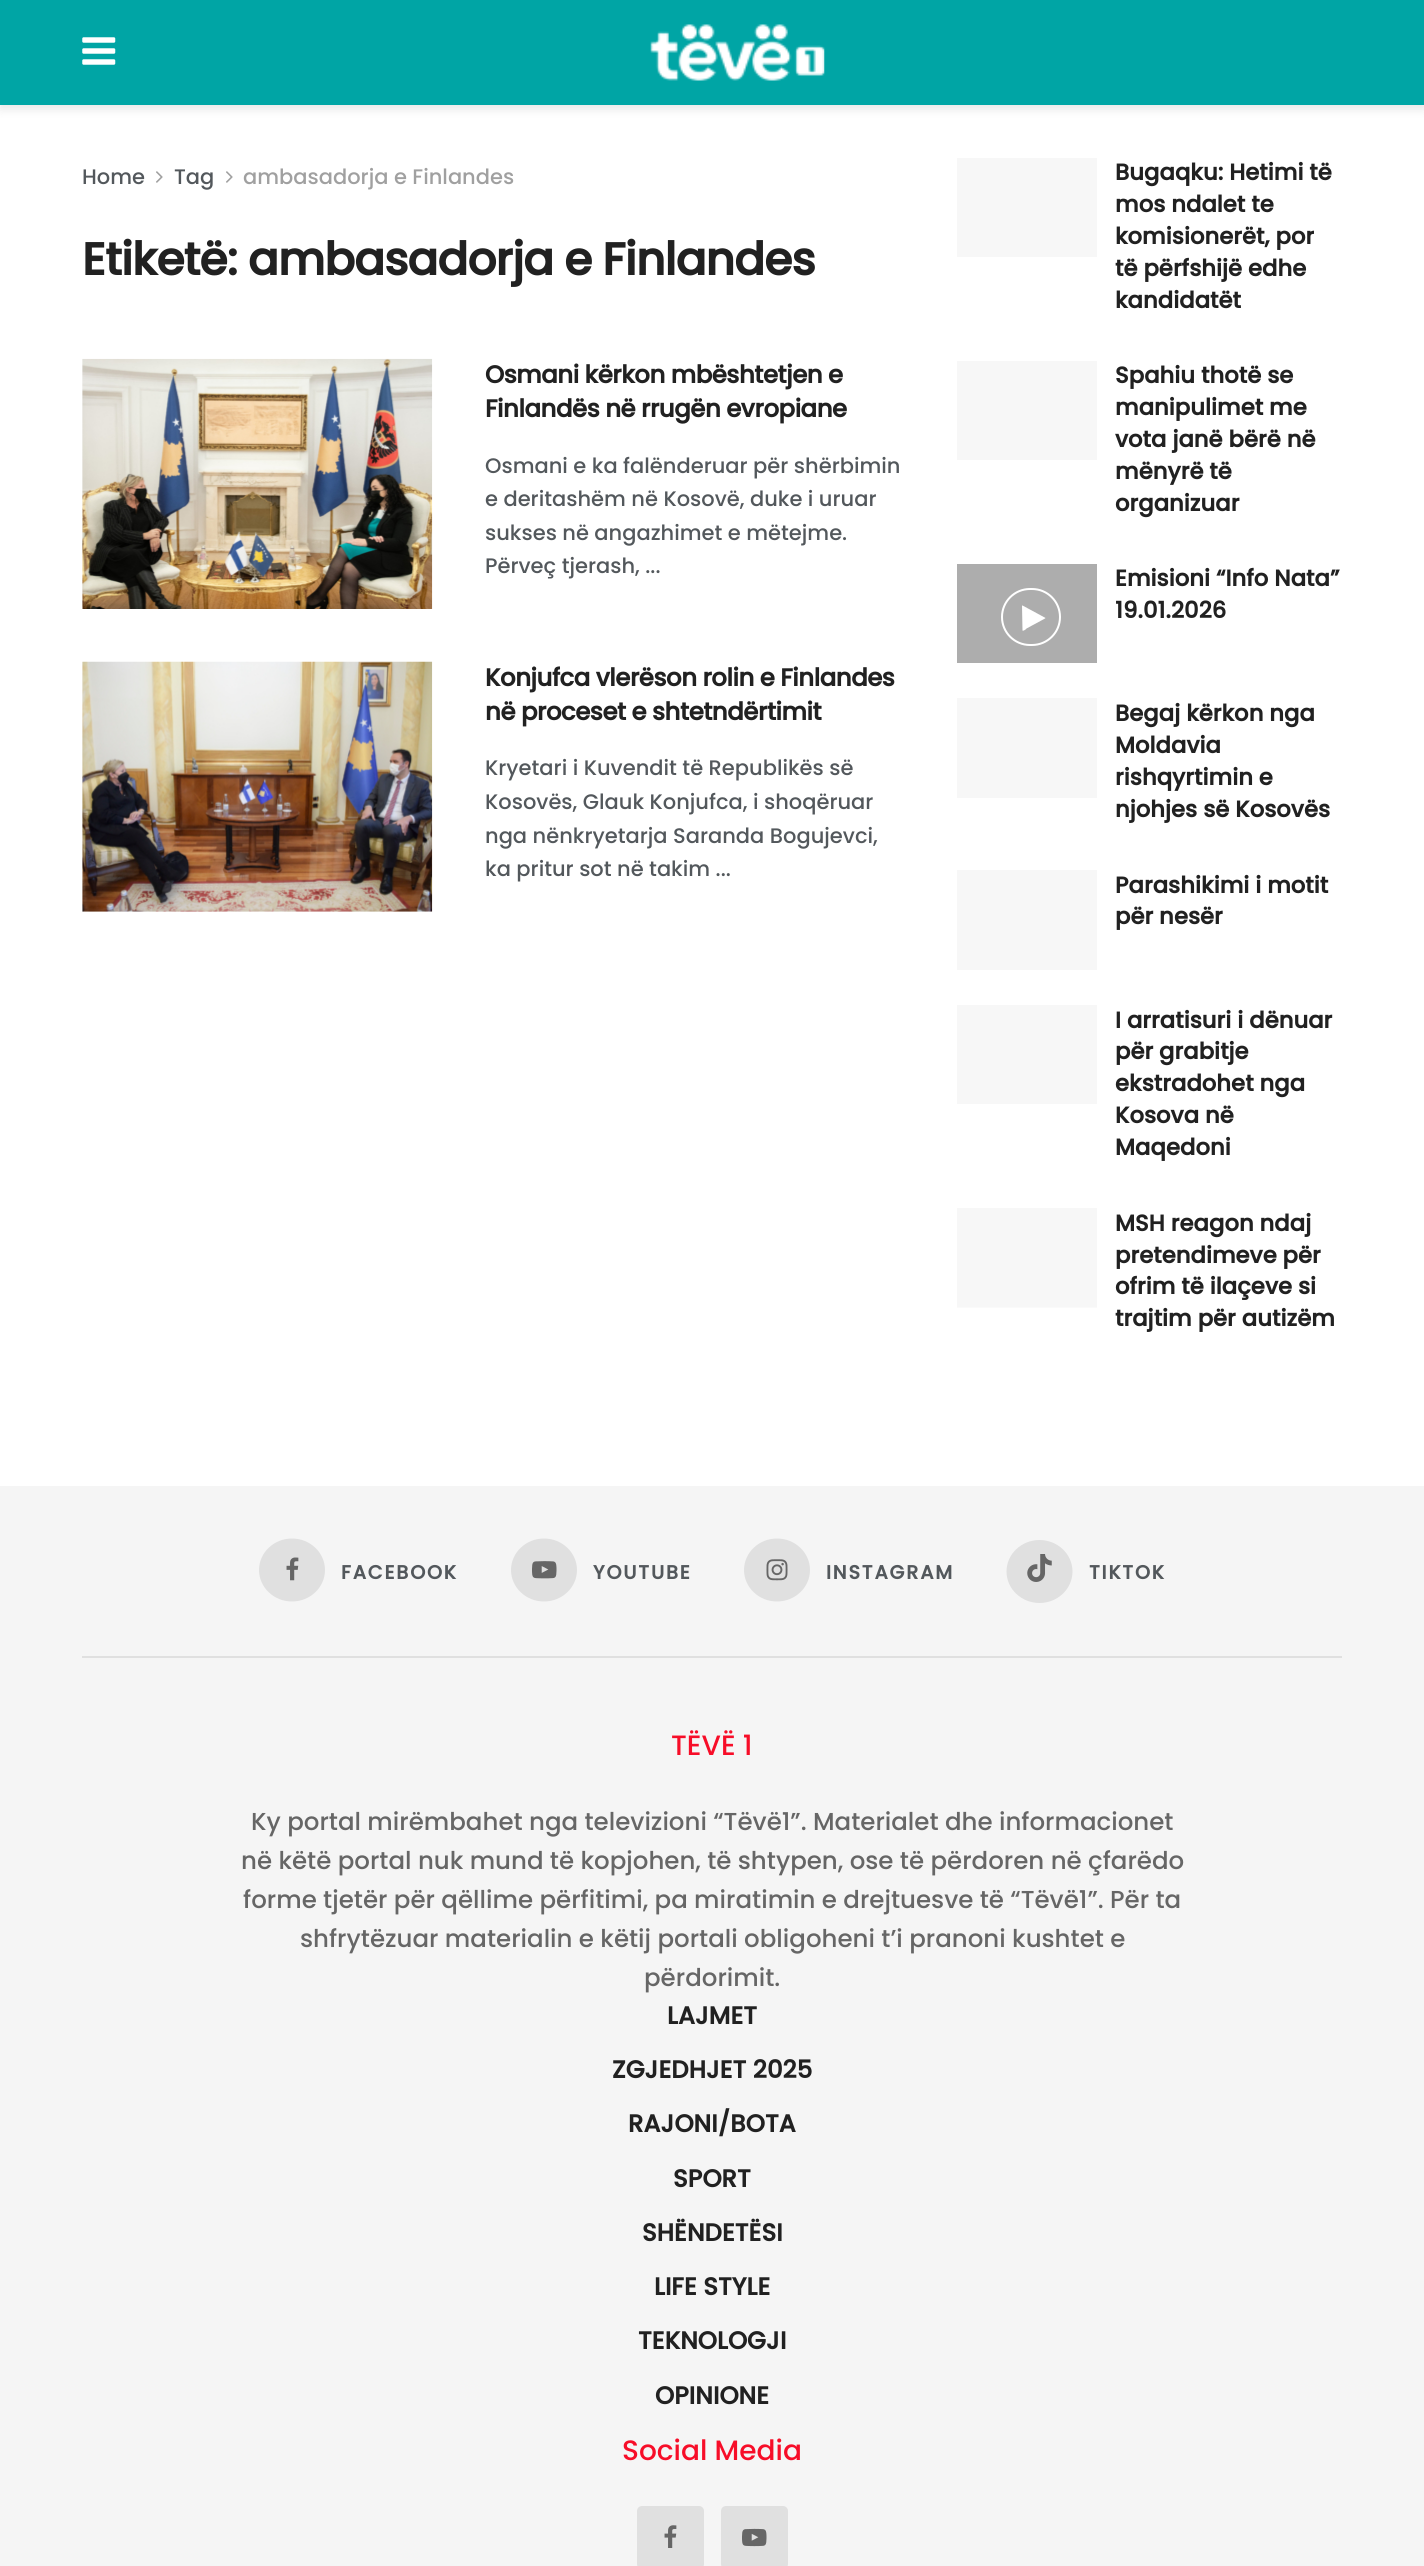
import math
import cairo

surface = cairo.ImageSurface(cairo.FORMAT_RGB24, 1424, 2566)
ctx = cairo.Context(surface)
options = cairo.FontOptions()
options.set_hint_metrics(cairo.HINT_METRICS_OFF)
options.set_hint_style(cairo.HINT_STYLE_NONE)
ctx.set_font_options(options)
ctx.set_miter_limit(4)


def set_color(code):
    ctx.set_source_rgb(*(v / 255 for v in bytes.fromhex(code[-6:])))


def draw_text(x, y, s, family, size, color, bold=False, italic=False):
    ctx.select_font_face(family, cairo.FONT_SLANT_ITALIC if italic else cairo.FONT_SLANT_NORMAL, cairo.FONT_WEIGHT_BOLD if bold else cairo.FONT_WEIGHT_NORMAL)
    ctx.set_font_size(size)
    set_color(color)
    ctx.move_to(x, y)
    ctx.show_text(s)


def draw_spaced(x, y, s, letter, word):
    ctx.move_to(x, y)
    for ch in s:
        ctx.show_text(ch)
        ctx.rel_move_to(letter + word * (ch == ' '), 0)


def fill_rect(x, y, w, h, color):
    set_color(color)
    ctx.rectangle(x, y, w, h)
    ctx.fill()


def rounded_rect(x, y, w, h, r):
    ctx.new_sub_path()
    for i, (u, v) in enumerate([(x + w - r, y + h - r), (x + r, y + h - r), (x + r, y + r), (x + w - r, y + r)]):
        ctx.arc(u, v, r, i * math.pi / 2, (i + 1) * math.pi / 2)
    ctx.close_path()


def draw_shadow(x, y, w, h, r, blur, alpha):
    ctx.push_group_with_content(cairo.CONTENT_ALPHA)
    ctx.set_operator(cairo.OPERATOR_SOURCE)
    for i in range(15, -16, -2):
        e = blur * i / 6
        if min(w, h) + 2 * e > 0:
            ctx.set_source_rgba(0, 0, 0, alpha * math.erfc((i - 1) / 8.5) / 2)
            rounded_rect(x - e, y - e, w + 2 * e, h + 2 * e, max(0, min(r + e + blur * .6, min(w, h) / 2 + e)))
            ctx.fill()
    ctx.mask(ctx.pop_group())


def draw_image(path, x, y, w, h):
    ctx.save()
    ctx.set_source_surface(cairo.ImageSurface.create_from_png(path), x, y)
    ctx.rectangle(x, y, w, h)
    ctx.fill()
    ctx.restore()


set_color("#ffffff")
ctx.paint()
set_color("#000000")
draw_shadow(0, 4, 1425, 105, 0, 5, 0.1)
fill_rect(0, 0, 1424, 105, "#00a5a5")
draw_image("assets/img1.png", 82, 37, 34, 28)
draw_image("assets/img2.png", 650, 24, 175, 57)
draw_text(82, 184, "Home", "Poppins Medium", 21, "#53585c")
draw_image("assets/img3.png", 156, 171, 7, 12)
draw_text(174, 184, "Tag", "Poppins Medium", 21, "#53585c")
draw_image("assets/img3.png", 226, 171, 7, 12)
draw_text(243, 184, "ambasadorja e Finlandes", "Poppins Medium", 21, "#a0a0a0")
ctx.select_font_face("Poppins", cairo.FONT_SLANT_NORMAL, cairo.FONT_WEIGHT_BOLD)
ctx.set_font_size(45.5)
set_color("#212121")
draw_spaced(82, 275, "Etiketë: ambasadorja e Finlandes", -0.9, 0)
fill_rect(82, 359, 1, 250, "#f7f7f7")
draw_image("assets/img4.png", 82, 358, 351, 251)
ctx.set_font_size(24.5)
set_color("#212121")
draw_spaced(485, 383, "Osmani kërkon mbështetjen e", -0.5, 0)
draw_spaced(485, 417, "Finlandës në rrugën evropiane", -0.5, 0)
draw_text(485, 473, "Osmani e ka falënderuar për shërbimin", "Poppins Medium", 21, "#53585c")
draw_text(485, 506, "e deritashëm në Kosovë, duke i uruar", "Poppins Medium", 21, "#53585c")
draw_text(485, 540, "sukses në angazhimet e mëtejme.", "Poppins Medium", 21, "#53585c")
draw_text(485, 573, "Përveç tjerash, ...", "Poppins Medium", 21, "#53585c")
fill_rect(82, 662, 350, 250, "#f7f7f7")
draw_image("assets/img5.png", 82, 661, 351, 251)
ctx.select_font_face("Poppins", cairo.FONT_SLANT_NORMAL, cairo.FONT_WEIGHT_BOLD)
ctx.set_font_size(24.5)
set_color("#212121")
draw_spaced(485, 686, "Konjufca vlerëson rolin e Finlandes", -0.5, 0)
draw_spaced(485, 720, "në proceset e shtetndërtimit", -0.5, 0)
draw_text(485, 775, "Kryetari i Kuvendit të Republikës së", "Poppins Medium", 21, "#53585c")
draw_text(485, 809, "Kosovës, Glauk Konjufca, i shoqëruar", "Poppins Medium", 21, "#53585c")
draw_text(485, 843, "nga nënkryetarja Saranda Bogujevci,", "Poppins Medium", 21, "#53585c")
draw_text(485, 876, "ka pritur sot në takim ...", "Poppins Medium", 21, "#53585c")
fill_rect(957, 158, 140, 99, "#f7f7f7")
draw_text(1115, 180, "Bugaqku: Hetimi të", "Poppins", 22.75, "#212121", bold=True)
draw_text(1115, 212, "mos ndalet te", "Poppins", 22.75, "#212121", bold=True)
draw_text(1115, 244, "komisionerët, por", "Poppins", 22.75, "#212121", bold=True)
draw_text(1115, 276, "të përfshijë edhe", "Poppins", 22.75, "#212121", bold=True)
draw_text(1115, 308, "kandidatët", "Poppins", 22.75, "#212121", bold=True)
fill_rect(957, 361, 140, 99, "#f7f7f7")
draw_text(1115, 383, "Spahiu thotë se", "Poppins", 22.75, "#212121", bold=True)
draw_text(1115, 415, "manipulimet me", "Poppins", 22.75, "#212121", bold=True)
draw_text(1115, 447, "vota janë bërë në", "Poppins", 22.75, "#212121", bold=True)
draw_text(1115, 479, "mënyrë të", "Poppins", 22.75, "#212121", bold=True)
draw_text(1115, 511, "organizuar", "Poppins", 22.75, "#212121", bold=True)
fill_rect(957, 564, 140, 99, "#adadad")
rounded_rect(1002, 589, 58, 56, 28)
set_color("#ffffff")
ctx.stroke()
ctx.new_path()
ctx.move_to(1045, 618.5)
ctx.line_to(1026.5, 628.5)
ctx.curve_to(1026.5, 629, 1023, 631.5, 1022.5, 630.5)
ctx.line_to(1022, 605.5)
ctx.line_to(1022.5, 605.5)
ctx.line_to(1041, 615.5)
ctx.line_to(1045.5, 618)
ctx.close_path()
ctx.fill()
draw_text(1115, 586, "Emisioni “Info Nata”", "Poppins", 22.75, "#212121", bold=True)
draw_text(1115, 618, "19.01.2026", "Poppins", 22.75, "#212121", bold=True)
fill_rect(957, 698, 140, 100, "#f7f7f7")
draw_text(1115, 721, "Begaj kërkon nga", "Poppins", 22.75, "#212121", bold=True)
draw_text(1115, 753, "Moldavia", "Poppins", 22.75, "#212121", bold=True)
draw_text(1115, 785, "rishqyrtimin e", "Poppins", 22.75, "#212121", bold=True)
draw_text(1115, 817, "njohjes së Kosovës", "Poppins", 22.75, "#212121", bold=True)
fill_rect(957, 870, 140, 100, "#f7f7f7")
draw_text(1115, 893, "Parashikimi i motit", "Poppins", 22.75, "#212121", bold=True)
draw_text(1115, 924, "për nesër", "Poppins", 22.75, "#212121", bold=True)
fill_rect(957, 1005, 140, 99, "#f7f7f7")
draw_text(1115, 1028, "I arratisuri i dënuar", "Poppins", 22.75, "#212121", bold=True)
draw_text(1115, 1059, "për grabitje", "Poppins", 22.75, "#212121", bold=True)
draw_text(1115, 1091, "ekstradohet nga", "Poppins", 22.75, "#212121", bold=True)
draw_text(1115, 1123, "Kosova në", "Poppins", 22.75, "#212121", bold=True)
draw_text(1115, 1155, "Maqedoni", "Poppins", 22.75, "#212121", bold=True)
fill_rect(957, 1208, 140, 99, "#f7f7f7")
fill_rect(957, 1307, 140, 1, "#fafafa")
draw_text(1115, 1231, "MSH reagon ndaj", "Poppins", 22.75, "#212121", bold=True)
draw_text(1115, 1263, "pretendimeve për", "Poppins", 22.75, "#212121", bold=True)
draw_text(1115, 1294, "ofrim të ilaçeve si", "Poppins", 22.75, "#212121", bold=True)
draw_text(1115, 1326, "trajtim për autizëm", "Poppins", 22.75, "#212121", bold=True)
fill_rect(0, 1486, 1424, 1080, "#f5f5f5")
fill_rect(82, 1656, 1260, 2, "#e0e0e0")
ctx.new_path()
ctx.move_to(292, 1538.5)
ctx.curve_to(310, 1538.5, 325, 1552.5, 325, 1570)
ctx.curve_to(325, 1587.5, 310, 1601.5, 292, 1601.5)
ctx.curve_to(274, 1601.5, 259, 1587.5, 259, 1570)
ctx.curve_to(259, 1552.5, 274, 1538.5, 292, 1538.5)
ctx.close_path()
ctx.fill()
draw_image("assets/img6.png", 286, 1557, 13, 24)
ctx.set_font_size(19.25)
set_color("#53585c")
draw_spaced(341, 1579, "FACEBOOK", 1.75, 0)
set_color("#e0e0e0")
ctx.new_path()
ctx.move_to(544, 1538.5)
ctx.curve_to(562, 1538.5, 577, 1552.5, 577, 1570)
ctx.curve_to(577, 1587.5, 562, 1601.5, 544, 1601.5)
ctx.curve_to(526, 1601.5, 511, 1587.5, 511, 1570)
ctx.curve_to(511, 1552.5, 526, 1538.5, 544, 1538.5)
ctx.close_path()
ctx.fill()
draw_image("assets/img7.png", 532, 1561, 25, 18)
set_color("#53585c")
draw_spaced(593, 1579, "YOUTUBE", 1.75, 0)
set_color("#e0e0e0")
ctx.new_path()
ctx.move_to(777, 1538.5)
ctx.curve_to(795, 1538.5, 810, 1552.5, 810, 1570)
ctx.curve_to(810, 1587.5, 795, 1601.5, 777, 1601.5)
ctx.curve_to(759, 1601.5, 744, 1587.5, 744, 1570)
ctx.curve_to(744, 1552.5, 759, 1538.5, 777, 1538.5)
ctx.close_path()
ctx.fill()
draw_image("assets/img8.png", 766, 1559, 22, 22)
set_color("#53585c")
draw_spaced(826, 1579, "INSTAGRAM", 1.75, 0)
set_color("#e0e0e0")
ctx.new_path()
ctx.move_to(1039.5, 1540)
ctx.curve_to(1057.5, 1540, 1072.5, 1554, 1072.5, 1571.5)
ctx.curve_to(1072.5, 1589, 1057.5, 1603, 1039.5, 1603)
ctx.curve_to(1021.5, 1603, 1006.5, 1589, 1006.5, 1571.5)
ctx.curve_to(1006.5, 1554, 1021.5, 1540, 1039.5, 1540)
ctx.close_path()
ctx.fill()
draw_image("assets/img9.png", 1027, 1554, 25, 28)
set_color("#53585c")
draw_spaced(1089, 1579, "TIKTOK", 1.75, 0)
draw_text(671, 1755, "TËVË 1", "Poppins Medium", 28, "#f70d28")
draw_text(251, 1830, "Ky portal mirëmbahet nga televizioni “Tëvë1”. Materialet dhe informacionet", "Poppins Medium", 24.5, "#666666")
draw_text(241, 1869, "në këtë portal nuk mund të kopjohen, të shtypen, ose të përdoren në çfarëdo", "Poppins Medium", 24.5, "#666666")
draw_text(243, 1908, "forme tjetër për qëllime përfitimi, pa miratimin e drejtuesve të “Tëvë1”. Për ta", "Poppins Medium", 24.5, "#666666")
draw_text(300, 1947, "shfrytëzuar materialin e këtij portali obligoheni t’i pranoni kushtet e", "Poppins Medium", 24.5, "#666666")
draw_text(644, 1986, "përdorimit.", "Poppins Medium", 24.5, "#666666")
draw_text(667, 2024, "LAJMET", "Poppins", 24.5, "#212121", bold=True)
draw_text(612, 2078, "ZGJEDHJET 2025", "Poppins", 24.5, "#212121", bold=True)
draw_text(628, 2132, "RAJONI/BOTA", "Poppins", 24.5, "#212121", bold=True)
draw_text(673, 2187, "SPORT", "Poppins", 24.5, "#212121", bold=True)
draw_text(642, 2241, "SHËNDETËSI", "Poppins", 24.5, "#212121", bold=True)
draw_text(654, 2295, "LIFE STYLE", "Poppins", 24.5, "#212121", bold=True)
draw_text(638, 2349, "TEKNOLOGJI", "Poppins", 24.5, "#212121", bold=True)
draw_text(655, 2404, "OPINIONE", "Poppins", 24.5, "#212121", bold=True)
draw_text(622, 2460, "Social Media", "Poppins Medium", 28, "#f70d28")
set_color("#e0e0e0")
rounded_rect(637, 2506, 67, 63, 5)
ctx.fill()
draw_image("assets/img10.png", 664, 2525, 13, 23)
rounded_rect(721, 2506, 67, 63, 5)
ctx.fill()
draw_image("assets/img11.png", 742, 2528, 25, 19)
surface.write_to_png("output.png")
